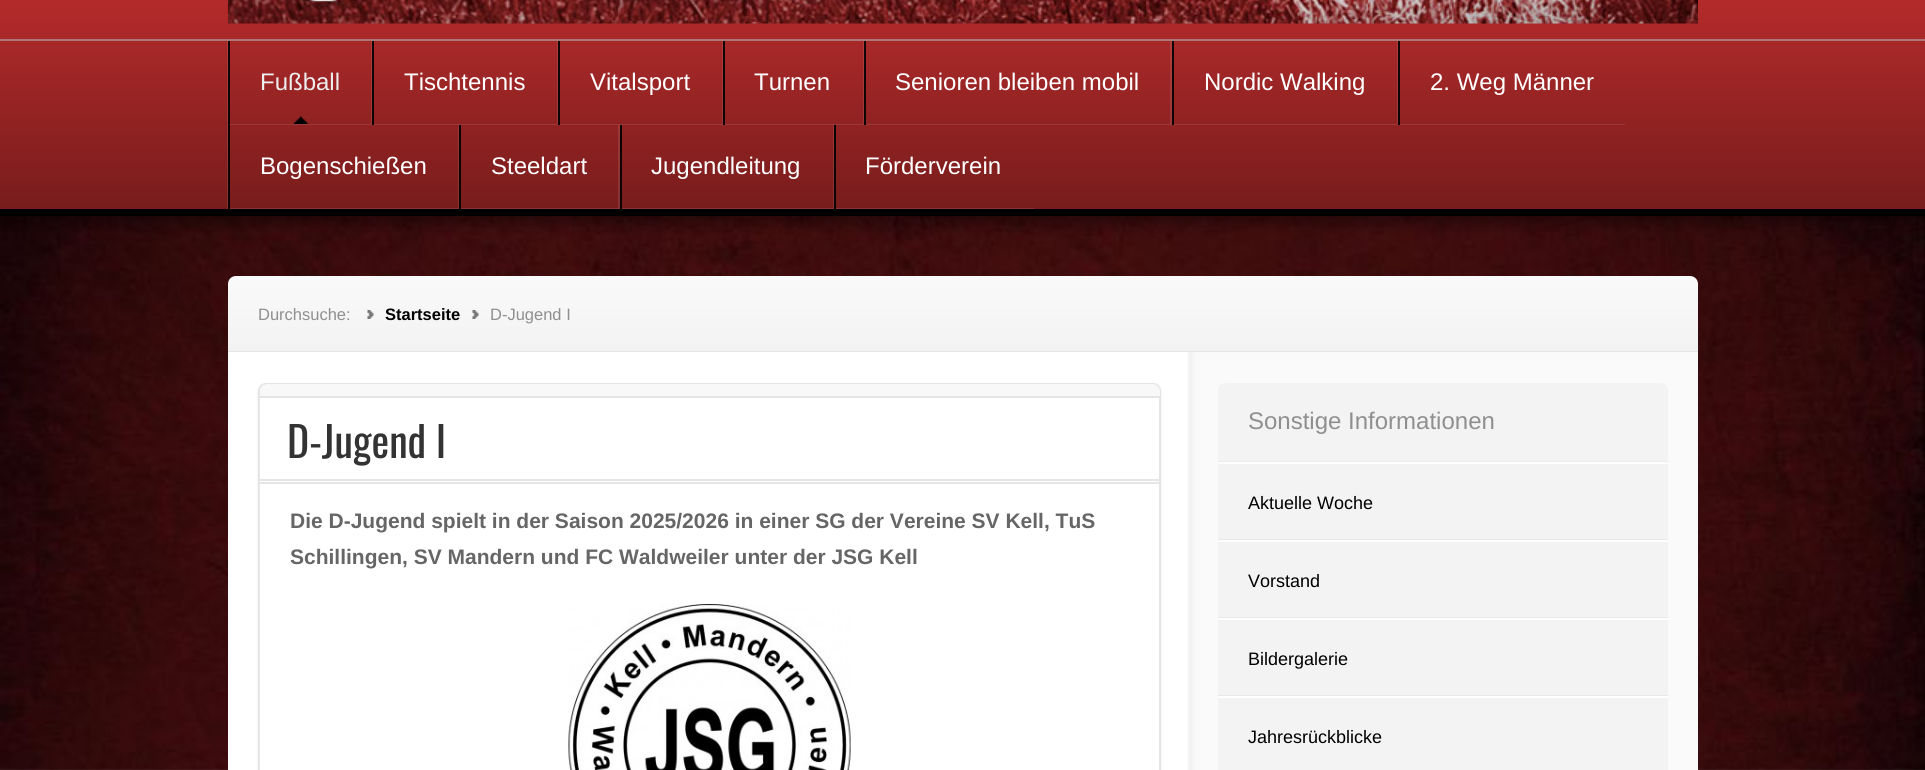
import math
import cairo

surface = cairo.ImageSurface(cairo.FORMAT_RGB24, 1925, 770)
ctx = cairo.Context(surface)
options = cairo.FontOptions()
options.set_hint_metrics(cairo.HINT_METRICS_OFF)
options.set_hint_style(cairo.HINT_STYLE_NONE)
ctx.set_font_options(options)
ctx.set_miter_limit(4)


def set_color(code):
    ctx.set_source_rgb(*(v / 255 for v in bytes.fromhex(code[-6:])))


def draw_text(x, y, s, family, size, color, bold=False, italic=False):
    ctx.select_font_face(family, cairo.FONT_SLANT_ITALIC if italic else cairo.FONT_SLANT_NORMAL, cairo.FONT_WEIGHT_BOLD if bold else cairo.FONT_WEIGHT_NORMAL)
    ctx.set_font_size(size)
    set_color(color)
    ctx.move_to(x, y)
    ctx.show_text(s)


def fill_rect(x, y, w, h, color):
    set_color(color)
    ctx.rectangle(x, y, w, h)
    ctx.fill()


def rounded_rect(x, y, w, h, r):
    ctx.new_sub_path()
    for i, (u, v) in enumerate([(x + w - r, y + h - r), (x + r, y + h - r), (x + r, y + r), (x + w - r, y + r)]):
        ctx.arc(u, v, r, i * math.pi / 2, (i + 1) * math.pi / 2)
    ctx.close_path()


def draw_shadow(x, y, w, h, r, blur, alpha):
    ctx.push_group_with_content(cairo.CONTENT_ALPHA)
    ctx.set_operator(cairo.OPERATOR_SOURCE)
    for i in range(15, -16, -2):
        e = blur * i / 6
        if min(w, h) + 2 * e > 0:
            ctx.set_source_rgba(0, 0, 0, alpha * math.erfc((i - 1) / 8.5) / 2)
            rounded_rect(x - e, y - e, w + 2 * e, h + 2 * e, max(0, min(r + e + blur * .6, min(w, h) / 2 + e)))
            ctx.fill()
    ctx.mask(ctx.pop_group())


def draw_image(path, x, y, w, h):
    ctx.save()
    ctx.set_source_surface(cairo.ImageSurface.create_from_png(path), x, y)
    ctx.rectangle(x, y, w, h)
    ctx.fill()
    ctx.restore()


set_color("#ffffff")
ctx.paint()
draw_image("assets/img1.png", 0, 216, 1925, 554)
set_color("#000000")
draw_shadow(0, 47, 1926, 177, 0, 7, 0.4)
gradient = cairo.LinearGradient(0, -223, 0, 39)
gradient.add_color_stop_rgba(0, 0.945, 0.224, 0.224, 1)
gradient.add_color_stop_rgba(1, 0.663, 0.157, 0.157, 1)
ctx.set_source(gradient)
ctx.rectangle(0, 0, 1925, 39)
ctx.fill()
draw_image("assets/img2.png", 228, 0, 1470, 24)
gradient = cairo.LinearGradient(0, 41, 0, 209)
gradient.add_color_stop_rgba(0, 0.659, 0.157, 0.157, 1)
gradient.add_color_stop_rgba(1, 0.471, 0.11, 0.11, 1)
ctx.set_source(gradient)
ctx.rectangle(0, 41, 1925, 168)
ctx.fill()
fill_rect(0, 39, 1925, 2, "#af7777")
fill_rect(0, 209, 1925, 7, "#000000")
ctx.set_source_rgba(1, 1, 1, 0.1)
ctx.new_path()
ctx.move_to(227, 41)
ctx.line_to(227, 125)
ctx.line_to(371, 125)
ctx.line_to(371, 124)
ctx.line_to(228, 124)
ctx.line_to(228, 41)
ctx.close_path()
ctx.fill()
draw_image("assets/img3.png", 294, 116, 14, 8)
ctx.set_source_rgba(0, 0, 0, 0.9)
ctx.rectangle(228, 41, 2, 84)
ctx.fill()
draw_text(260, 90, "Fußball", "Liberation Sans", 24, "#eeeeee")
ctx.set_source_rgba(1, 1, 1, 0.1)
ctx.new_path()
ctx.move_to(371, 41)
ctx.line_to(371, 125)
ctx.line_to(557, 125)
ctx.line_to(557, 124)
ctx.line_to(372, 124)
ctx.line_to(372, 41)
ctx.close_path()
ctx.fill()
ctx.set_source_rgba(0, 0, 0, 0.9)
ctx.rectangle(372, 41, 2, 84)
ctx.fill()
draw_text(404, 90, "Tischtennis", "Liberation Sans", 24, "#ffffff")
ctx.set_source_rgba(1, 1, 1, 0.1)
ctx.new_path()
ctx.move_to(557, 41)
ctx.line_to(557, 125)
ctx.line_to(722, 125)
ctx.line_to(722, 124)
ctx.line_to(558, 124)
ctx.line_to(558, 41)
ctx.close_path()
ctx.fill()
ctx.set_source_rgba(0, 0, 0, 0.9)
ctx.rectangle(558, 41, 2, 84)
ctx.fill()
draw_text(590, 90, "Vitalsport", "Liberation Sans", 24, "#ffffff")
ctx.set_source_rgba(1, 1, 1, 0.1)
ctx.new_path()
ctx.move_to(722, 41)
ctx.line_to(722, 125)
ctx.line_to(863, 125)
ctx.line_to(863, 124)
ctx.line_to(723, 124)
ctx.line_to(723, 41)
ctx.close_path()
ctx.fill()
ctx.set_source_rgba(0, 0, 0, 0.9)
ctx.rectangle(723, 41, 2, 84)
ctx.fill()
draw_text(754, 90, "Turnen", "Liberation Sans", 24, "#ffffff")
ctx.set_source_rgba(1, 1, 1, 0.1)
ctx.new_path()
ctx.move_to(863, 41)
ctx.line_to(863, 125)
ctx.line_to(1170, 125)
ctx.line_to(1170, 124)
ctx.line_to(864, 124)
ctx.line_to(864, 41)
ctx.close_path()
ctx.fill()
ctx.set_source_rgba(0, 0, 0, 0.9)
ctx.rectangle(864, 41, 2, 84)
ctx.fill()
draw_text(895, 90, "Senioren bleiben mobil", "Liberation Sans", 24, "#ffffff")
ctx.set_source_rgba(1, 1, 1, 0.1)
ctx.new_path()
ctx.move_to(1170, 41)
ctx.line_to(1170, 125)
ctx.line_to(1397, 125)
ctx.line_to(1397, 124)
ctx.line_to(1172, 124)
ctx.line_to(1172, 41)
ctx.close_path()
ctx.fill()
ctx.set_source_rgba(0, 0, 0, 0.9)
ctx.rectangle(1172, 41, 2, 84)
ctx.fill()
draw_text(1204, 90, "Nordic Walking", "Liberation Sans", 24, "#ffffff")
ctx.set_source_rgba(1, 1, 1, 0.1)
ctx.new_path()
ctx.move_to(1397, 41)
ctx.line_to(1397, 125)
ctx.line_to(1625, 125)
ctx.line_to(1625, 124)
ctx.line_to(1398, 124)
ctx.line_to(1398, 41)
ctx.close_path()
ctx.fill()
ctx.set_source_rgba(0, 0, 0, 0.9)
ctx.rectangle(1398, 41, 2, 84)
ctx.fill()
draw_text(1430, 90, "2. Weg Männer", "Liberation Sans", 24, "#ffffff")
ctx.set_source_rgba(1, 1, 1, 0.1)
ctx.new_path()
ctx.move_to(227, 125)
ctx.line_to(227, 209)
ctx.line_to(458, 209)
ctx.line_to(458, 208)
ctx.line_to(228, 208)
ctx.line_to(228, 125)
ctx.close_path()
ctx.fill()
ctx.set_source_rgba(0, 0, 0, 0.9)
ctx.rectangle(228, 125, 2, 84)
ctx.fill()
draw_text(260, 174, "Bogenschießen", "Liberation Sans", 24, "#ffffff")
ctx.set_source_rgba(1, 1, 1, 0.1)
ctx.new_path()
ctx.move_to(458, 125)
ctx.line_to(458, 209)
ctx.line_to(618, 209)
ctx.line_to(618, 208)
ctx.line_to(459, 208)
ctx.line_to(459, 125)
ctx.close_path()
ctx.fill()
ctx.set_source_rgba(0, 0, 0, 0.9)
ctx.rectangle(459, 125, 2, 84)
ctx.fill()
draw_text(491, 174, "Steeldart", "Liberation Sans", 24, "#ffffff")
ctx.set_source_rgba(1, 1, 1, 0.1)
ctx.new_path()
ctx.move_to(618, 125)
ctx.line_to(618, 209)
ctx.line_to(833, 209)
ctx.line_to(833, 208)
ctx.line_to(620, 208)
ctx.line_to(620, 125)
ctx.close_path()
ctx.fill()
ctx.set_source_rgba(0, 0, 0, 0.9)
ctx.rectangle(620, 125, 2, 84)
ctx.fill()
draw_text(651, 174, "Jugendleitung", "Liberation Sans", 24, "#ffffff")
ctx.set_source_rgba(1, 1, 1, 0.1)
ctx.new_path()
ctx.move_to(833, 125)
ctx.line_to(833, 209)
ctx.line_to(1034, 209)
ctx.line_to(1034, 208)
ctx.line_to(834, 208)
ctx.line_to(834, 125)
ctx.close_path()
ctx.fill()
ctx.set_source_rgba(0, 0, 0, 0.9)
ctx.rectangle(834, 125, 2, 84)
ctx.fill()
draw_text(865, 174, "Förderverein", "Liberation Sans", 24, "#ffffff")
gradient = cairo.LinearGradient(228, 276, 228, 351)
gradient.add_color_stop_rgba(0, 0.98, 0.98, 0.98, 1)
gradient.add_color_stop_rgba(1, 0.949, 0.949, 0.949, 1)
ctx.set_source(gradient)
ctx.new_path()
ctx.move_to(236, 276)
ctx.line_to(1690, 276)
ctx.curve_to(1694.5, 276, 1698, 279.5, 1698, 284)
ctx.line_to(1698, 351)
ctx.line_to(228, 351)
ctx.line_to(228, 284)
ctx.curve_to(228, 279.5, 231.5, 276, 236, 276)
ctx.close_path()
ctx.fill()
fill_rect(228, 351, 1470, 1, "#e4e4e4")
draw_text(258, 320, "Durchsuche:", "Liberation Sans", 16.5, "#8f8f8f")
draw_image("assets/img4.png", 367, 310, 7, 9)
draw_text(385, 320, "Startseite", "Liberation Sans", 16.5, "#000000", bold=True)
draw_image("assets/img5.png", 472, 310, 7, 9)
draw_text(490, 320, "D-Jugend I", "Liberation Sans", 16.5, "#8f8f8f")
draw_image("assets/img6.png", 228, 352, 1470, 418)
set_color("#e7e7e7")
draw_shadow(258, 384, 903, 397, 8, 1, 1)
set_color("#ffffff")
rounded_rect(259, 384, 901, 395, 7)
ctx.fill_preserve()
set_color("#e5e5e5")
ctx.stroke()
set_color("#f8f8f8")
ctx.new_path()
ctx.move_to(268, 384)
ctx.line_to(1152, 384)
ctx.curve_to(1156.5, 384, 1160, 387.5, 1160, 392)
ctx.line_to(1160, 398)
ctx.line_to(260, 398)
ctx.line_to(260, 392)
ctx.curve_to(260, 387.5, 263.5, 384, 268, 384)
ctx.close_path()
ctx.fill()
fill_rect(260, 396, 900, 2, "#e4e4e4")
draw_text(287, 458, "D-Jugend I", "Oswald", 42, "#333333")
fill_rect(260, 479, 900, 2, "#e5e5e5")
fill_rect(260, 482, 900, 2, "#e5e5e5")
draw_text(290, 528, "Die D-Jugend spielt in der Saison 2025/2026 in einer SG der Vereine SV Kell, TuS", "Liberation Sans", 21, "#666666", bold=True)
draw_text(290, 564, "Schillingen, SV Mandern und FC Waldweiler unter der JSG Kell", "Liberation Sans", 21, "#666666", bold=True)
draw_image("assets/img7.png", 568, 604, 283, 166)
set_color("#f3f3f3")
rounded_rect(1218, 383, 450, 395, 8)
ctx.fill()
draw_text(1248, 429, "Sonstige Informationen", "Liberation Sans", 24, "#8f8f8f")
fill_rect(1218, 461, 450, 1, "#ececec")
fill_rect(1218, 462, 450, 2, "#fefefe")
draw_text(1248, 509, "Aktuelle Woche", "Liberation Sans", 18, "#000000")
fill_rect(1218, 539, 450, 1, "#e8e8e8")
fill_rect(1218, 540, 450, 2, "#fefefe")
draw_text(1248, 587, "Vorstand", "Liberation Sans", 18, "#000000")
fill_rect(1218, 617, 450, 1, "#e8e8e8")
fill_rect(1218, 618, 450, 2, "#fefefe")
draw_text(1248, 665, "Bildergalerie", "Liberation Sans", 18, "#000000")
fill_rect(1218, 695, 450, 1, "#e8e8e8")
fill_rect(1218, 696, 450, 2, "#fefefe")
draw_text(1248, 743, "Jahresrückblicke", "Liberation Sans", 18, "#000000")
surface.write_to_png("output.png")
